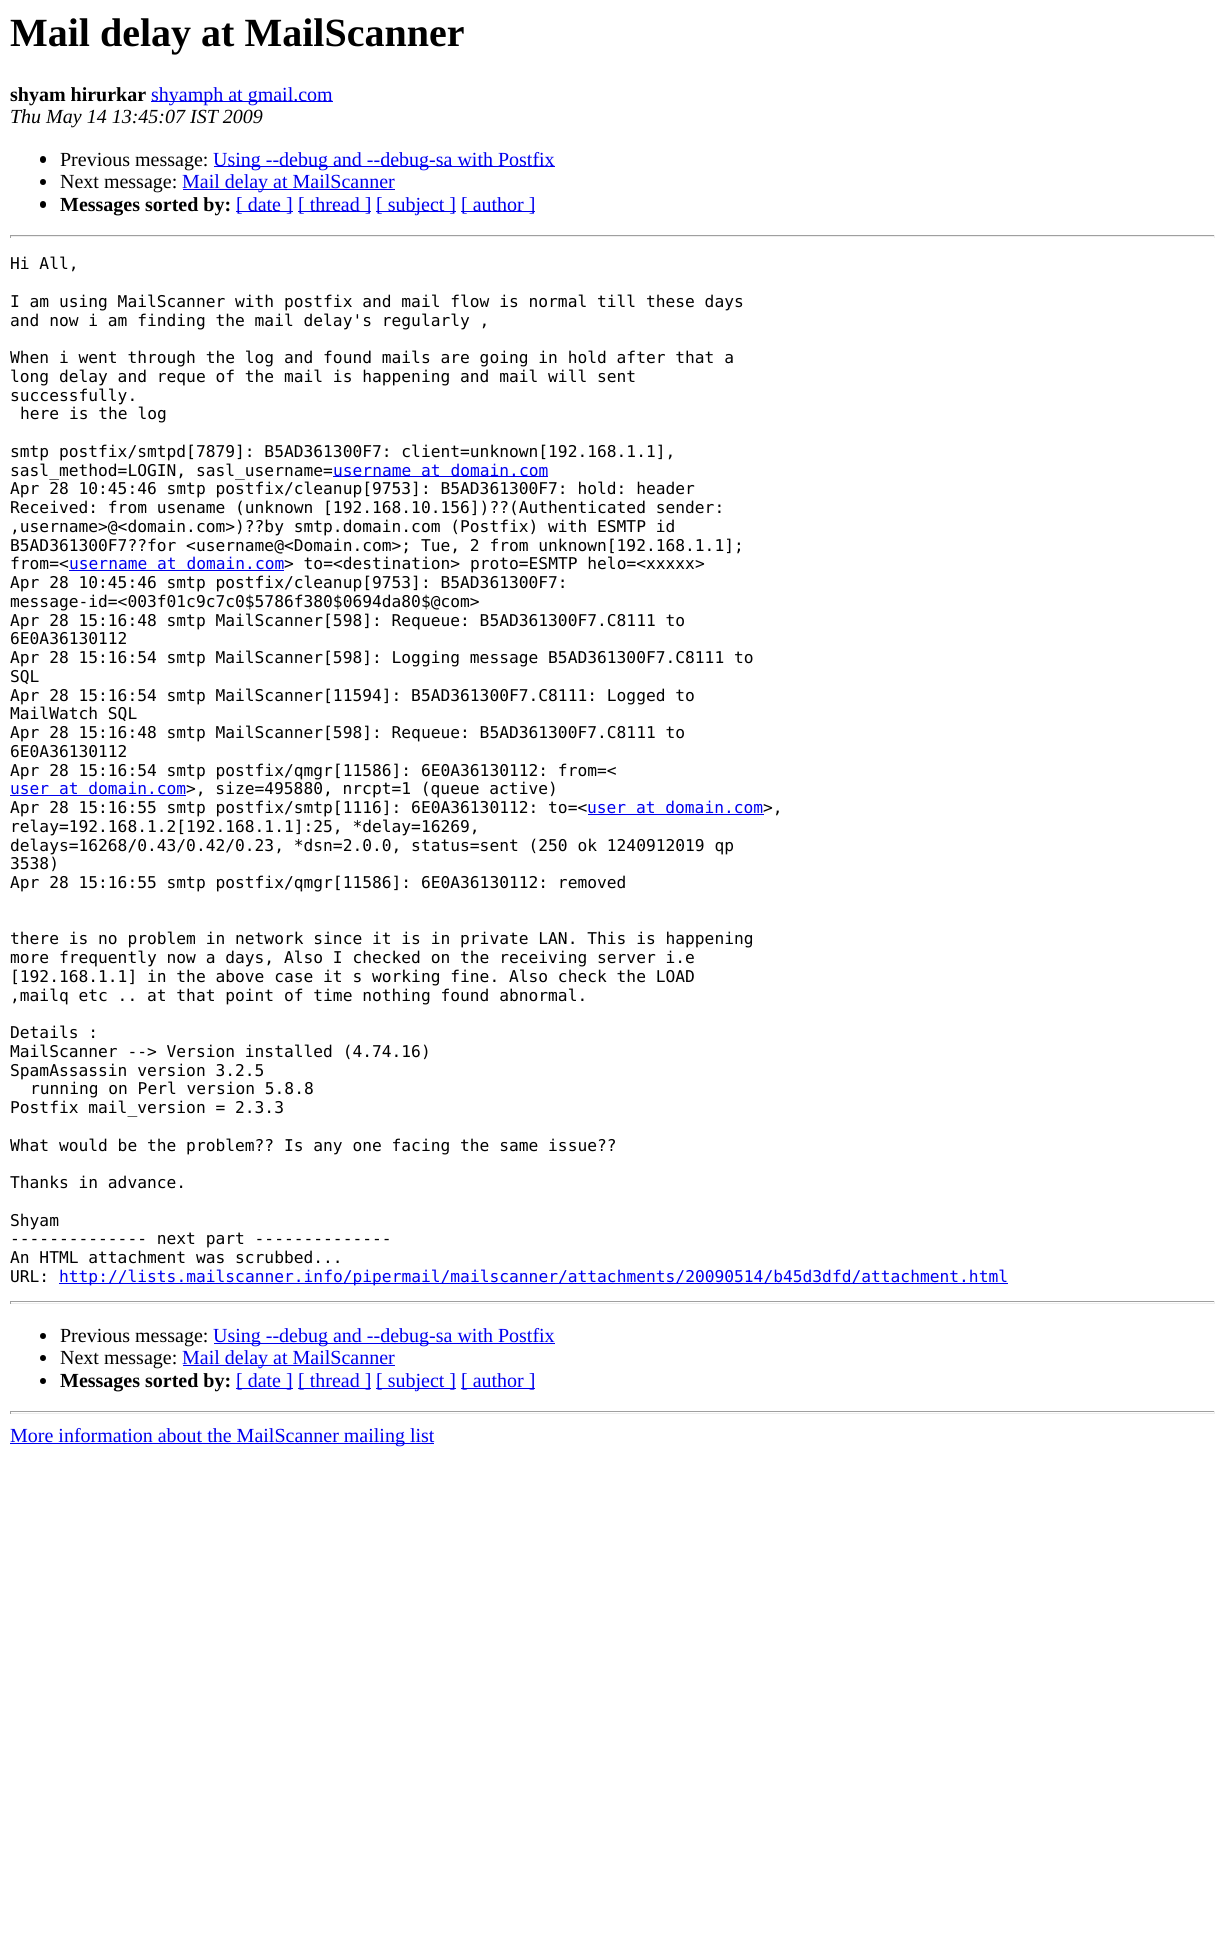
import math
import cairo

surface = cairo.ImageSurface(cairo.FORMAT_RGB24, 1225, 1946)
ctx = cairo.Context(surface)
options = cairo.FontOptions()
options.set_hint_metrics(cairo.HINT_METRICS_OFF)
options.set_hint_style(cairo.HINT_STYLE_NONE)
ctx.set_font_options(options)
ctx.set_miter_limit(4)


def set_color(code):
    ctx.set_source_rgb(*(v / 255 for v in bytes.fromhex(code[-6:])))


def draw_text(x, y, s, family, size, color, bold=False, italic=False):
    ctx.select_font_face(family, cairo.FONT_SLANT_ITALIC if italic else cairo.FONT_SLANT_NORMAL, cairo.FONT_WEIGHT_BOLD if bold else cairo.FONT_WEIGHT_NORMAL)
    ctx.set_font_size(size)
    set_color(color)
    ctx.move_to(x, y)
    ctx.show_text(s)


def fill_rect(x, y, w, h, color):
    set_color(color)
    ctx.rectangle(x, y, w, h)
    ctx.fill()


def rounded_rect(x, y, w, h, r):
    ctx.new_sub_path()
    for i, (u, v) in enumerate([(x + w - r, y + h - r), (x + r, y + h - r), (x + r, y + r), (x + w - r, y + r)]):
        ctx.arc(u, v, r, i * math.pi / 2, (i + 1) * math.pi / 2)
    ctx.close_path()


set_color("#ffffff")
ctx.paint()
draw_text(10, 46, "Mail delay at MailScanner", "Liberation Serif", 40, "#000000", bold=True)
draw_text(10, 101, "shyam hirurkar", "Liberation Serif", 20, "#000000", bold=True)
fill_rect(151, 101, 182, 1, "#0000ee")
draw_text(151, 101, "shyamph at gmail.com", "Liberation Serif", 20, "#0000ee")
draw_text(10, 123, "Thu May 14 13:45:07 IST 2009", "Liberation Serif", 20, "#000000", italic=True)
rounded_rect(40, 156, 6, 7, 3)
ctx.fill()
draw_text(60, 166, "Previous message:", "Liberation Serif", 20, "#000000")
fill_rect(214, 166, 341, 1, "#0000ee")
draw_text(213, 166, "Using --debug and --debug-sa with Postfix", "Liberation Serif", 20, "#0000ee")
set_color("#000000")
ctx.new_path()
ctx.arc(43, 182, 3, 0, 2 * math.pi)
ctx.fill()
draw_text(60, 188, "Next message:", "Liberation Serif", 20, "#000000")
fill_rect(183, 189, 212, 1, "#0000ee")
draw_text(182, 188, "Mail delay at MailScanner", "Liberation Serif", 20, "#0000ee")
set_color("#000000")
rounded_rect(40, 201, 6, 7, 3)
ctx.fill()
draw_text(60, 211, "Messages sorted by:", "Liberation Serif", 20, "#000000", bold=True)
fill_rect(236, 211, 57, 1, "#0000ee")
draw_text(236, 211, "[ date ]", "Liberation Serif", 20, "#0000ee")
fill_rect(298, 211, 73, 1, "#0000ee")
draw_text(298, 211, "[ thread ]", "Liberation Serif", 20, "#0000ee")
fill_rect(376, 211, 80, 1, "#0000ee")
draw_text(376, 211, "[ subject ]", "Liberation Serif", 20, "#0000ee")
fill_rect(461, 211, 74, 1, "#0000ee")
draw_text(461, 211, "[ author ]", "Liberation Serif", 20, "#0000ee")
fill_rect(10, 235, 1205, 1, "#9f9f9f")
fill_rect(1214, 235, 1, 3, "#eeeeee")
fill_rect(10, 236, 1205, 1, "#eeeeee")
fill_rect(10, 235, 1, 3, "#9f9f9f")
draw_text(10, 269, "Hi All,", "DejaVu Sans Mono", 16.25, "#000000")
draw_text(10, 307, "I am using MailScanner with postfix and mail flow is normal till these days", "DejaVu Sans Mono", 16.25, "#000000")
draw_text(10, 326, "and now i am finding the mail delay's regularly ,", "DejaVu Sans Mono", 16.25, "#000000")
draw_text(10, 363, "When i went through the log and found mails are going in hold after that a", "DejaVu Sans Mono", 16.25, "#000000")
draw_text(10, 382, "long delay and reque of the mail is happening and mail will sent", "DejaVu Sans Mono", 16.25, "#000000")
draw_text(10, 401, "successfully.", "DejaVu Sans Mono", 16.25, "#000000")
draw_text(20, 419, "here is the log", "DejaVu Sans Mono", 16.25, "#000000")
draw_text(10, 457, "smtp postfix/smtpd[7879]: B5AD361300F7: client=unknown[192.168.1.1],", "DejaVu Sans Mono", 16.25, "#000000")
draw_text(10, 476, "sasl_method=LOGIN, sasl_username=", "DejaVu Sans Mono", 16.25, "#000000")
fill_rect(333, 476, 215, 1, "#0000ee")
draw_text(333, 476, "username at domain.com", "DejaVu Sans Mono", 16.25, "#0000ee")
draw_text(10, 494, "Apr 28 10:45:46 smtp postfix/cleanup[9753]: B5AD361300F7: hold: header", "DejaVu Sans Mono", 16.25, "#000000")
draw_text(10, 513, "Received: from usename (unknown [192.168.10.156])??(Authenticated sender:", "DejaVu Sans Mono", 16.25, "#000000")
draw_text(10, 532, ",username>@<domain.com>)??by smtp.domain.com (Postfix) with ESMTP id", "DejaVu Sans Mono", 16.25, "#000000")
draw_text(10, 551, "B5AD361300F7??for <username@<Domain.com>; Tue, 2 from unknown[192.168.1.1];", "DejaVu Sans Mono", 16.25, "#000000")
draw_text(10, 569, "from=<", "DejaVu Sans Mono", 16.25, "#000000")
draw_text(69, 569, "username at domain.com", "DejaVu Sans Mono", 16.25, "#0000ee")
fill_rect(69, 570, 215, 1, "#0000ee")
draw_text(284, 569, "> to=<destination> proto=ESMTP helo=<xxxxx>", "DejaVu Sans Mono", 16.25, "#000000")
draw_text(10, 588, "Apr 28 10:45:46 smtp postfix/cleanup[9753]: B5AD361300F7:", "DejaVu Sans Mono", 16.25, "#000000")
draw_text(10, 607, "message-id=<003f01c9c7c0$5786f380$0694da80$@com>", "DejaVu Sans Mono", 16.25, "#000000")
draw_text(10, 626, "Apr 28 15:16:48 smtp MailScanner[598]: Requeue: B5AD361300F7.C8111 to", "DejaVu Sans Mono", 16.25, "#000000")
draw_text(10, 644, "6E0A36130112", "DejaVu Sans Mono", 16.25, "#000000")
draw_text(10, 663, "Apr 28 15:16:54 smtp MailScanner[598]: Logging message B5AD361300F7.C8111 to", "DejaVu Sans Mono", 16.25, "#000000")
draw_text(10, 682, "SQL", "DejaVu Sans Mono", 16.25, "#000000")
draw_text(10, 701, "Apr 28 15:16:54 smtp MailScanner[11594]: B5AD361300F7.C8111: Logged to", "DejaVu Sans Mono", 16.25, "#000000")
draw_text(10, 719, "MailWatch SQL", "DejaVu Sans Mono", 16.25, "#000000")
draw_text(10, 738, "Apr 28 15:16:48 smtp MailScanner[598]: Requeue: B5AD361300F7.C8111 to", "DejaVu Sans Mono", 16.25, "#000000")
draw_text(10, 757, "6E0A36130112", "DejaVu Sans Mono", 16.25, "#000000")
draw_text(10, 776, "Apr 28 15:16:54 smtp postfix/qmgr[11586]: 6E0A36130112: from=<", "DejaVu Sans Mono", 16.25, "#000000")
draw_text(10, 794, "user at domain.com", "DejaVu Sans Mono", 16.25, "#0000ee")
fill_rect(10, 795, 176, 1, "#0000ee")
draw_text(186, 794, ">, size=495880, nrcpt=1 (queue active)", "DejaVu Sans Mono", 16.25, "#000000")
draw_text(10, 813, "Apr 28 15:16:55 smtp postfix/smtp[1116]: 6E0A36130112: to=<", "DejaVu Sans Mono", 16.25, "#000000")
draw_text(587, 813, "user at domain.com", "DejaVu Sans Mono", 16.25, "#0000ee")
fill_rect(588, 814, 176, 1, "#0000ee")
draw_text(763, 813, ">,", "DejaVu Sans Mono", 16.25, "#000000")
draw_text(10, 832, "relay=192.168.1.2[192.168.1.1]:25, *delay=16269,", "DejaVu Sans Mono", 16.25, "#000000")
draw_text(10, 851, "delays=16268/0.43/0.42/0.23, *dsn=2.0.0, status=sent (250 ok 1240912019 qp", "DejaVu Sans Mono", 16.25, "#000000")
draw_text(10, 869, "3538)", "DejaVu Sans Mono", 16.25, "#000000")
draw_text(10, 888, "Apr 28 15:16:55 smtp postfix/qmgr[11586]: 6E0A36130112: removed", "DejaVu Sans Mono", 16.25, "#000000")
draw_text(10, 944, "there is no problem in network since it is in private LAN. This is happening", "DejaVu Sans Mono", 16.25, "#000000")
draw_text(10, 963, "more frequently now a days, Also I checked on the receiving server i.e", "DejaVu Sans Mono", 16.25, "#000000")
draw_text(10, 982, "[192.168.1.1] in the above case it s working fine. Also check the LOAD", "DejaVu Sans Mono", 16.25, "#000000")
draw_text(10, 1001, ",mailq etc .. at that point of time nothing found abnormal.", "DejaVu Sans Mono", 16.25, "#000000")
draw_text(10, 1038, "Details :", "DejaVu Sans Mono", 16.25, "#000000")
draw_text(10, 1057, "MailScanner --> Version installed (4.74.16)", "DejaVu Sans Mono", 16.25, "#000000")
draw_text(10, 1076, "SpamAssassin version 3.2.5", "DejaVu Sans Mono", 16.25, "#000000")
draw_text(30, 1094, "running on Perl version 5.8.8", "DejaVu Sans Mono", 16.25, "#000000")
draw_text(10, 1113, "Postfix mail_version = 2.3.3", "DejaVu Sans Mono", 16.25, "#000000")
draw_text(10, 1151, "What would be the problem?? Is any one facing the same issue??", "DejaVu Sans Mono", 16.25, "#000000")
draw_text(10, 1188, "Thanks in advance.", "DejaVu Sans Mono", 16.25, "#000000")
draw_text(10, 1226, "Shyam", "DejaVu Sans Mono", 16.25, "#000000")
draw_text(10, 1244, "-------------- next part --------------", "DejaVu Sans Mono", 16.25, "#000000")
draw_text(10, 1263, "An HTML attachment was scrubbed...", "DejaVu Sans Mono", 16.25, "#000000")
draw_text(10, 1282, "URL:", "DejaVu Sans Mono", 16.25, "#000000")
fill_rect(59, 1283, 949, 1, "#0000ee")
draw_text(59, 1282, "http://lists.mailscanner.info/pipermail/mailscanner/attachments/20090514/b45d3dfd/attachment.html", "DejaVu Sans Mono", 16.25, "#0000ee")
fill_rect(10, 1301, 1205, 1, "#9f9f9f")
fill_rect(1214, 1301, 1, 3, "#eeeeee")
fill_rect(10, 1303, 1205, 1, "#eeeeee")
fill_rect(10, 1301, 1, 3, "#9f9f9f")
set_color("#000000")
ctx.new_path()
ctx.arc(43, 1336, 3, 0, 2 * math.pi)
ctx.fill()
draw_text(60, 1342, "Previous message:", "Liberation Serif", 20, "#000000")
fill_rect(214, 1343, 341, 1, "#0000ee")
draw_text(213, 1342, "Using --debug and --debug-sa with Postfix", "Liberation Serif", 20, "#0000ee")
set_color("#000000")
ctx.new_path()
ctx.arc(43, 1358, 3, 0, 2 * math.pi)
ctx.fill()
draw_text(60, 1364, "Next message:", "Liberation Serif", 20, "#000000")
fill_rect(183, 1365, 212, 1, "#0000ee")
draw_text(182, 1364, "Mail delay at MailScanner", "Liberation Serif", 20, "#0000ee")
set_color("#000000")
ctx.new_path()
ctx.arc(43, 1381, 3, 0, 2 * math.pi)
ctx.fill()
draw_text(60, 1387, "Messages sorted by:", "Liberation Serif", 20, "#000000", bold=True)
fill_rect(236, 1388, 57, 1, "#0000ee")
draw_text(236, 1387, "[ date ]", "Liberation Serif", 20, "#0000ee")
fill_rect(298, 1388, 73, 1, "#0000ee")
draw_text(298, 1387, "[ thread ]", "Liberation Serif", 20, "#0000ee")
fill_rect(376, 1388, 80, 1, "#0000ee")
draw_text(376, 1387, "[ subject ]", "Liberation Serif", 20, "#0000ee")
fill_rect(461, 1388, 74, 1, "#0000ee")
draw_text(461, 1387, "[ author ]", "Liberation Serif", 20, "#0000ee")
fill_rect(10, 1411, 1205, 1, "#9f9f9f")
fill_rect(1214, 1411, 1, 3, "#eeeeee")
fill_rect(10, 1413, 1205, 1, "#eeeeee")
fill_rect(10, 1411, 1, 3, "#9f9f9f")
fill_rect(10, 1443, 424, 1, "#0000ee")
draw_text(10, 1442, "More information about the MailScanner mailing list", "Liberation Serif", 20, "#0000ee")
surface.write_to_png("output.png")
